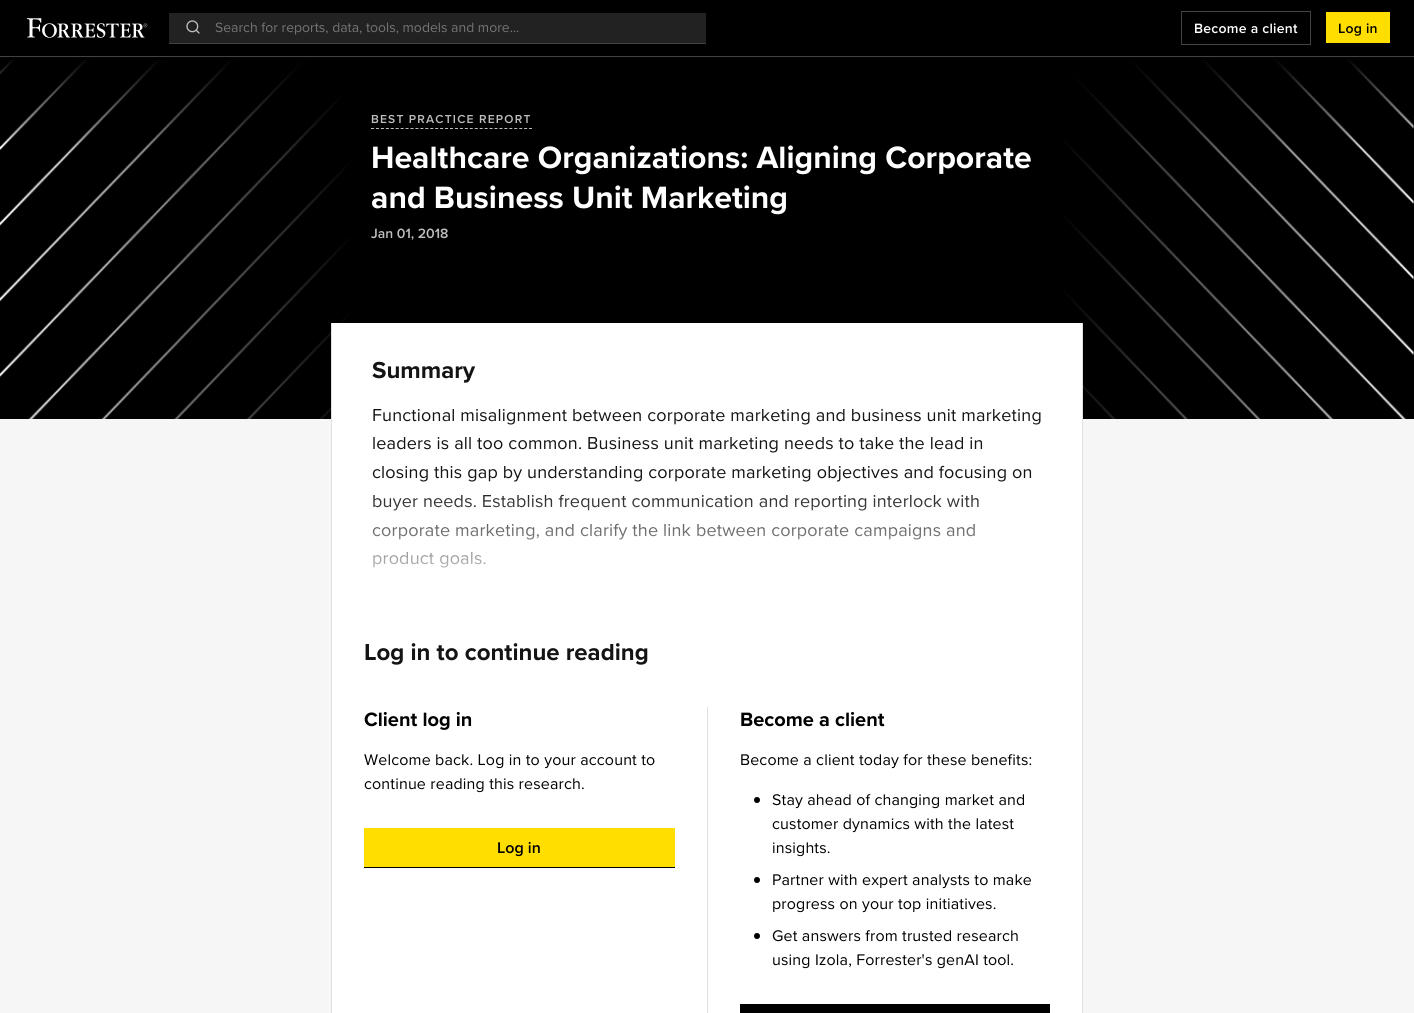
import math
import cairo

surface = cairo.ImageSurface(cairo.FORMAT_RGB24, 1414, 1013)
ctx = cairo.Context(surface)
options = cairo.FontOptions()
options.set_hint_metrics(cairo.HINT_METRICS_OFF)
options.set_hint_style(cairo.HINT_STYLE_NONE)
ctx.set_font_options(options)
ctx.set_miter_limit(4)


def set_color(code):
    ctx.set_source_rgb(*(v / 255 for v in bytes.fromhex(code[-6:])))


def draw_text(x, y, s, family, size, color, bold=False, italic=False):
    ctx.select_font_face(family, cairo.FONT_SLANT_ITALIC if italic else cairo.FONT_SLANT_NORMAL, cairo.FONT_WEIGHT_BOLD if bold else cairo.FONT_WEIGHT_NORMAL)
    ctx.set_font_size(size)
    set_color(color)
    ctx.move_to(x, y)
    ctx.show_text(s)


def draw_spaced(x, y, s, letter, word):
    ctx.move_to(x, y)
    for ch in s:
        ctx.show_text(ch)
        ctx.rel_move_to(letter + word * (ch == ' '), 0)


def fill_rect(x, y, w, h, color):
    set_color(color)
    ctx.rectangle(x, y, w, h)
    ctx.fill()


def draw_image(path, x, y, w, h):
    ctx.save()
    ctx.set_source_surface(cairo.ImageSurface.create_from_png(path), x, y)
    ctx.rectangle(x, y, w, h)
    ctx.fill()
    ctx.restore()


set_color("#f6f6f6")
ctx.paint()
fill_rect(0, 0, 1414, 56, "#000000")
fill_rect(0, 56, 1414, 1, "#434343")
draw_image("assets/img1.png", 26, 18, 122, 20)
fill_rect(169, 13, 537, 30, "#222222")
fill_rect(169, 43, 537, 1, "#434343")
draw_image("assets/img2.png", 186, 20, 14, 14)
draw_text(215, 32, "Search for reports, data, tools, models and more...", "Proxima Nova", 14, "#757575")
ctx.rectangle(1181.5, 11.5, 129, 33)
set_color("#434343")
ctx.set_line_width(1)
ctx.stroke()
ctx.select_font_face("Proxima Nova SemiBold")
set_color("#ffffff")
draw_spaced(1194, 33, "Become a client", 0.25, 0)
fill_rect(1326, 12, 64, 31, "#ffde00")
set_color("#000000")
draw_spaced(1338, 33, "Log in", 0.25, 0)
fill_rect(0, 58, 1414, 361, "#000000")
draw_image("assets/img3.png", 0, 58, 1414, 361)
gradient = cairo.LinearGradient(0, 238, 1414, 238)
gradient.add_color_stop_rgba(0, 0, 0, 0, 0)
gradient.add_color_stop_rgba(0.25, 0, 0, 0, 1)
gradient.add_color_stop_rgba(0.75, 0, 0, 0, 1)
gradient.add_color_stop_rgba(1, 0, 0, 0, 0)
ctx.set_source(gradient)
ctx.rectangle(8, 58, 1398, 361)
ctx.fill()
gradient = cairo.LinearGradient(707, 57, 707, 419)
gradient.add_color_stop_rgba(0, 0, 0, 0, 1)
gradient.add_color_stop_rgba(0.25, 0, 0, 0, 0)
gradient.add_color_stop_rgba(1, 0, 0, 0, 0)
ctx.set_source(gradient)
ctx.rectangle(0, 57, 1414, 89)
ctx.fill()
ctx.new_path()
ctx.move_to(371, 128.5)
ctx.line_to(532, 128.5)
set_color("#bebebe")
ctx.set_dash([3, 1.94])
ctx.stroke()
ctx.set_font_size(12)
draw_spaced(371, 123, "BEST PRACTICE REPORT", 1.2, 0)
draw_text(371, 168, "Healthcare Organizations: Aligning Corporate", "Proxima Nova", 32, "#ffffff", bold=True)
draw_text(371, 208, "and Business Unit Marketing", "Proxima Nova", 32, "#ffffff", bold=True)
draw_text(371, 238, "Jan 01, 2018", "Proxima Nova SemiBold", 14, "#bebebe")
fill_rect(332, 323, 750, 281, "#ffffff")
draw_text(372, 378, "Summary", "Proxima Nova", 24, "#141414", bold=True)
ctx.select_font_face("Proxima Nova")
ctx.set_font_size(18)
draw_spaced(372, 421, "Functional misalignment between corporate marketing and business unit marketing", 0.18, 0)
draw_spaced(372, 449, "leaders is all too common. Business unit marketing needs to take the lead in", 0.18, 0)
draw_spaced(372, 478, "closing this gap by understanding corporate marketing objectives and focusing on", 0.18, 0)
draw_spaced(372, 507, "buyer needs. Establish frequent communication and reporting interlock with", 0.18, 0)
draw_spaced(372, 536, "corporate marketing, and clarify the link between corporate campaigns and", 0.18, 0)
draw_spaced(372, 564, "product goals.", 0.18, 0)
fill_rect(332, 605, 750, 408, "#ffffff")
fill_rect(1082, 323, 1, 690, "#e1e1e1")
fill_rect(331, 323, 1, 690, "#e1e1e1")
gradient = cairo.LinearGradient(707, 485, 707, 605)
gradient.add_color_stop_rgba(0, 1, 1, 1, 0)
gradient.add_color_stop_rgba(1, 1, 1, 1, 1)
ctx.set_source(gradient)
ctx.rectangle(332, 494, 750, 111)
ctx.fill()
draw_text(364, 660, "Log in to continue reading", "Proxima Nova", 24, "#141414", bold=True)
draw_text(364, 726, "Client log in", "Proxima Nova", 20, "#000000", bold=True)
ctx.select_font_face("Proxima Nova")
ctx.set_font_size(16)
draw_spaced(364, 765, "Welcome back. Log in to your account to", 0.15, 0)
draw_spaced(364, 789, "continue reading this research.", 0.15, 0)
fill_rect(364, 828, 311, 39, "#ffde00")
fill_rect(364, 867, 311, 1, "#000000")
draw_text(497, 853, "Log in", "Proxima Nova SemiBold", 16, "#000000")
fill_rect(707, 707, 1, 306, "#e1e1e1")
draw_text(740, 726, "Become a client", "Proxima Nova", 20, "#000000", bold=True)
ctx.select_font_face("Proxima Nova")
ctx.set_font_size(16)
draw_spaced(740, 765, "Become a client today for these benefits:", 0.15, 0)
ctx.new_path()
ctx.arc(757, 800, 3, 0, 2 * math.pi)
ctx.fill()
draw_spaced(772, 805, "Stay ahead of changing market and", 0.15, 0)
draw_spaced(772, 829, "customer dynamics with the latest", 0.15, 0)
draw_spaced(772, 853, "insights.", 0.15, 0)
ctx.new_path()
ctx.arc(757, 880, 3, 0, 2 * math.pi)
ctx.fill()
draw_spaced(772, 885, "Partner with expert analysts to make", 0.15, 0)
draw_spaced(772, 909, "progress on your top initiatives.", 0.15, 0)
ctx.new_path()
ctx.arc(757, 936, 3, 0, 2 * math.pi)
ctx.fill()
draw_spaced(772, 941, "Get answers from trusted research", 0.15, 0)
draw_spaced(772, 965, "using Izola, Forrester's genAI tool.", 0.15, 0)
fill_rect(740, 1004, 310, 9, "#000000")
surface.write_to_png("output.png")
